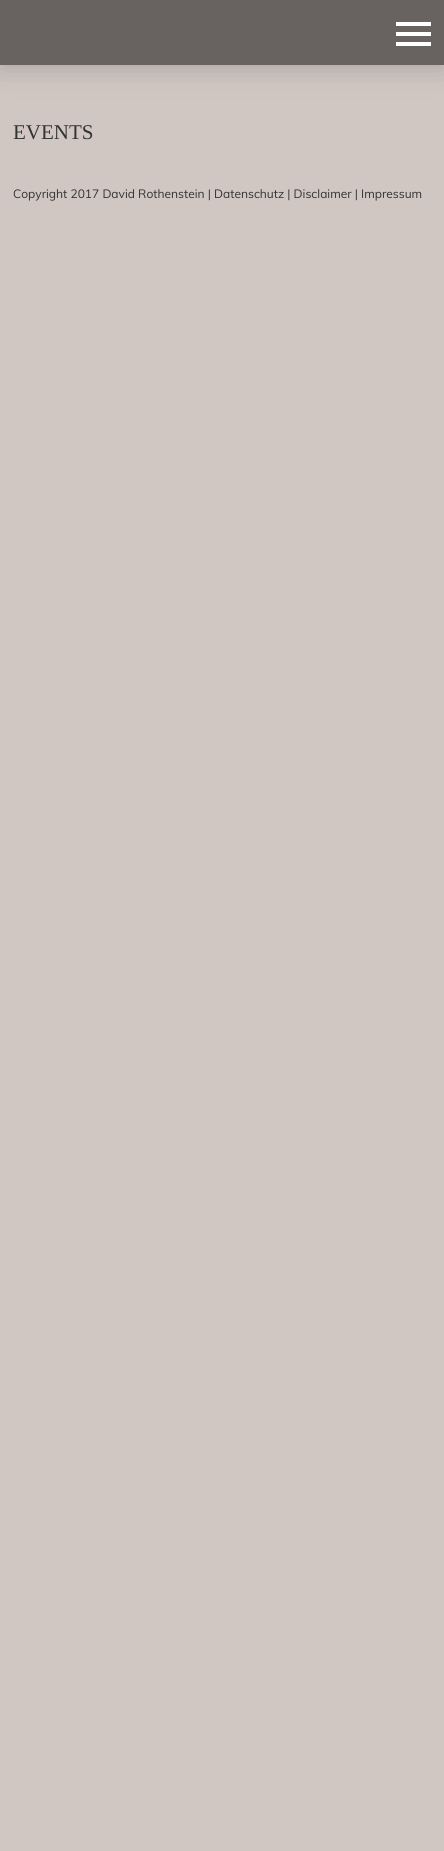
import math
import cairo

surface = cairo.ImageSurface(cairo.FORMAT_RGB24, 444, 1851)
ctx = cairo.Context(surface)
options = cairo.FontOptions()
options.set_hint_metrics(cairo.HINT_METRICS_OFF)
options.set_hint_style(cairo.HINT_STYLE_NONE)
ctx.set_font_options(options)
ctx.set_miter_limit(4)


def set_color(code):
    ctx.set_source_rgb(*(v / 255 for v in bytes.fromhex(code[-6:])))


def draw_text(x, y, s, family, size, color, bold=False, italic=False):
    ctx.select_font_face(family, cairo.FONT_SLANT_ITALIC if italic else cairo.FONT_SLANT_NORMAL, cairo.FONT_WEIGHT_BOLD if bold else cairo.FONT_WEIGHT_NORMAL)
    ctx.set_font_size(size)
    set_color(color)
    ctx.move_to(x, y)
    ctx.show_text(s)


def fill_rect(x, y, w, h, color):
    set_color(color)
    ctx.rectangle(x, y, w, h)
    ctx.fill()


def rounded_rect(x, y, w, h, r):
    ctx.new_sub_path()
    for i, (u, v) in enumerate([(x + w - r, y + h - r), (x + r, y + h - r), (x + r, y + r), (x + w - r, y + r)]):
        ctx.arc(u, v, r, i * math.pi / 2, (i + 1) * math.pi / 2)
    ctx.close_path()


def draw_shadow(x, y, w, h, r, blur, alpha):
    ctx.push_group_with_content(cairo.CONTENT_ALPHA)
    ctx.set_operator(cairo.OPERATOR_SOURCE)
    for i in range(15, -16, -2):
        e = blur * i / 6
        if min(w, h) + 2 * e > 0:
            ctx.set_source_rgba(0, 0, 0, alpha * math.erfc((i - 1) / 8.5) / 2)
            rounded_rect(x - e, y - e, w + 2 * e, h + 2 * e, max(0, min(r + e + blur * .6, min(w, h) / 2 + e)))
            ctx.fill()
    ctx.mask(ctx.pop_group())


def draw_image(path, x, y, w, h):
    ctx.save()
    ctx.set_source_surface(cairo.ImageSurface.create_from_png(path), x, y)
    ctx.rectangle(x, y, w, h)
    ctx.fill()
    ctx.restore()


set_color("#d0c6c2")
ctx.paint()
set_color("#000000")
draw_shadow(0, 0, 444, 65, 0, 15, 0.2)
fill_rect(0, 0, 444, 65, "#686361")
draw_image("assets/img1.png", 396, 22, 35, 24)
draw_text(13, 139, "EVENTS", "Liberation Serif", 21, "#333333")
draw_text(13, 198, "Copyright 2017 David Rothenstein | Datenschutz | Disclaimer | Impressum", "Muli", 12, "#333333")
surface.write_to_png("output.png")
